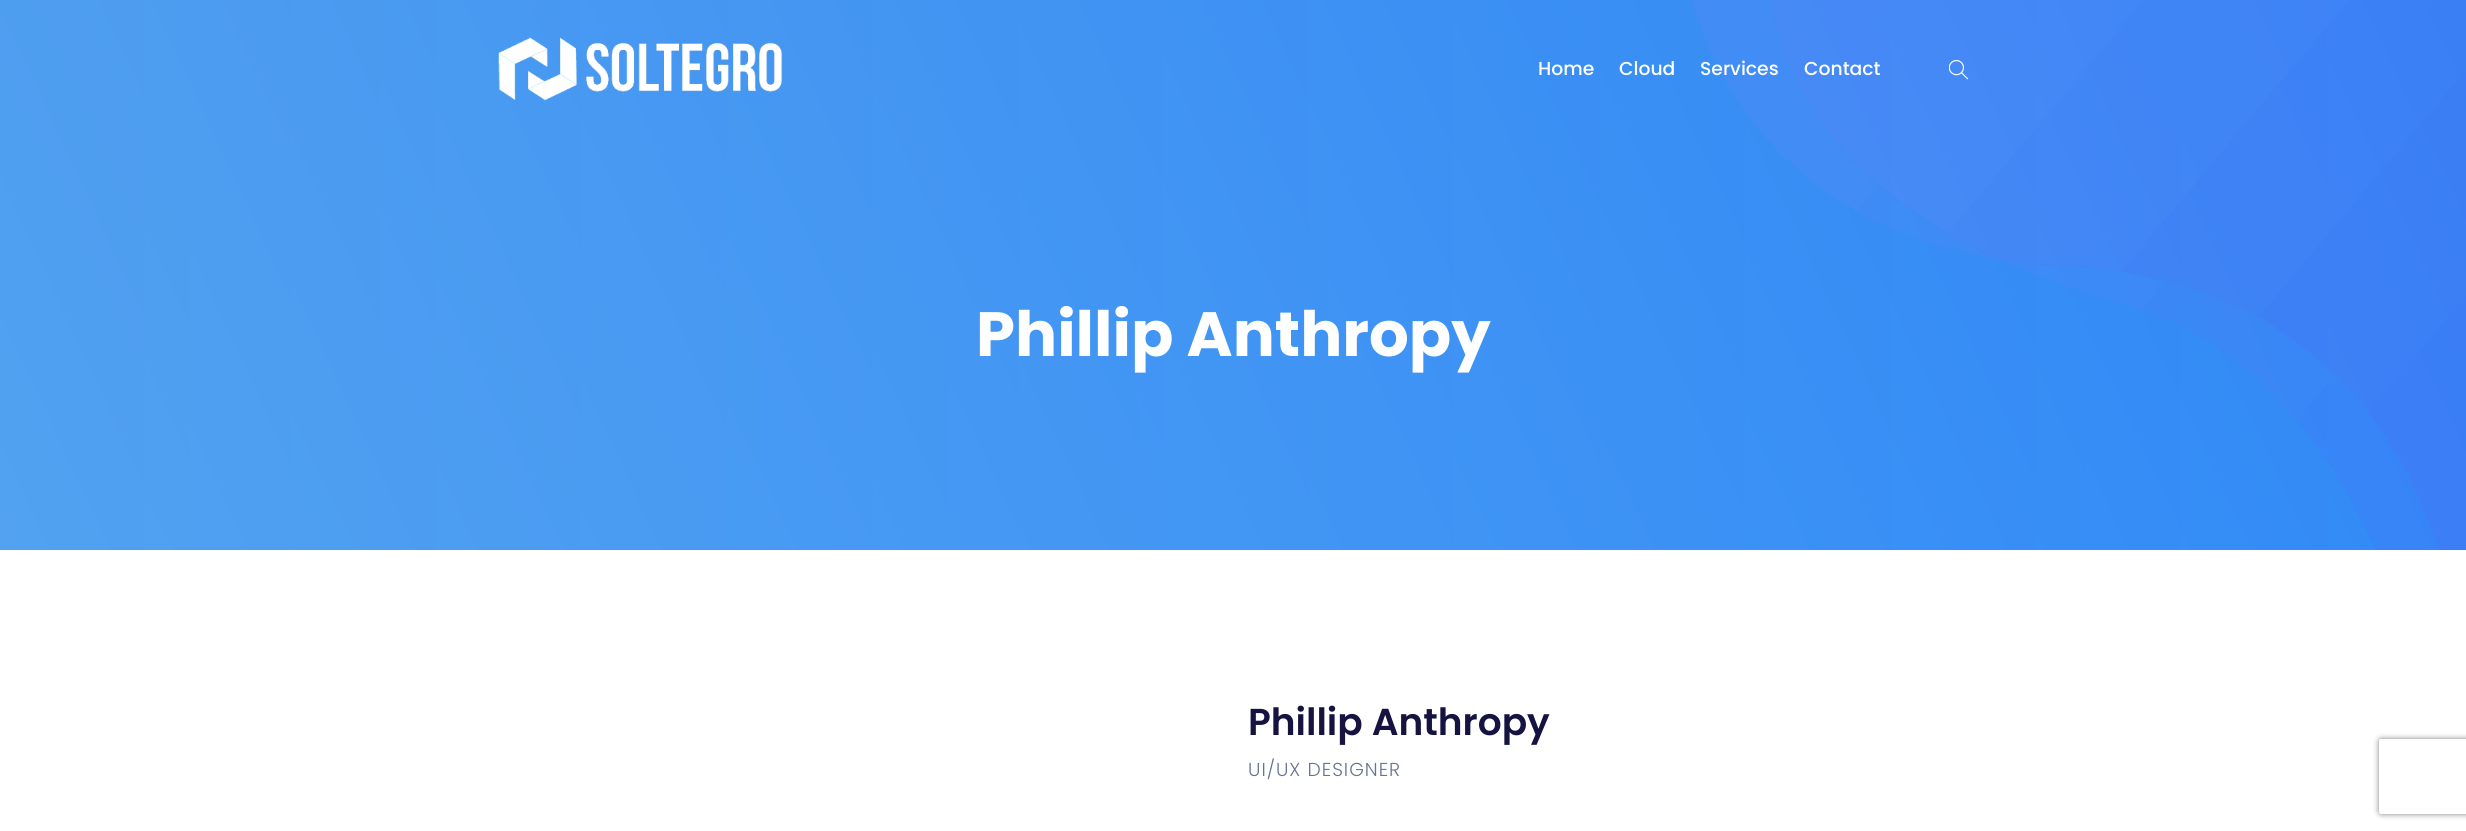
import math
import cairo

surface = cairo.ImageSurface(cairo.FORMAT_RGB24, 2466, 831)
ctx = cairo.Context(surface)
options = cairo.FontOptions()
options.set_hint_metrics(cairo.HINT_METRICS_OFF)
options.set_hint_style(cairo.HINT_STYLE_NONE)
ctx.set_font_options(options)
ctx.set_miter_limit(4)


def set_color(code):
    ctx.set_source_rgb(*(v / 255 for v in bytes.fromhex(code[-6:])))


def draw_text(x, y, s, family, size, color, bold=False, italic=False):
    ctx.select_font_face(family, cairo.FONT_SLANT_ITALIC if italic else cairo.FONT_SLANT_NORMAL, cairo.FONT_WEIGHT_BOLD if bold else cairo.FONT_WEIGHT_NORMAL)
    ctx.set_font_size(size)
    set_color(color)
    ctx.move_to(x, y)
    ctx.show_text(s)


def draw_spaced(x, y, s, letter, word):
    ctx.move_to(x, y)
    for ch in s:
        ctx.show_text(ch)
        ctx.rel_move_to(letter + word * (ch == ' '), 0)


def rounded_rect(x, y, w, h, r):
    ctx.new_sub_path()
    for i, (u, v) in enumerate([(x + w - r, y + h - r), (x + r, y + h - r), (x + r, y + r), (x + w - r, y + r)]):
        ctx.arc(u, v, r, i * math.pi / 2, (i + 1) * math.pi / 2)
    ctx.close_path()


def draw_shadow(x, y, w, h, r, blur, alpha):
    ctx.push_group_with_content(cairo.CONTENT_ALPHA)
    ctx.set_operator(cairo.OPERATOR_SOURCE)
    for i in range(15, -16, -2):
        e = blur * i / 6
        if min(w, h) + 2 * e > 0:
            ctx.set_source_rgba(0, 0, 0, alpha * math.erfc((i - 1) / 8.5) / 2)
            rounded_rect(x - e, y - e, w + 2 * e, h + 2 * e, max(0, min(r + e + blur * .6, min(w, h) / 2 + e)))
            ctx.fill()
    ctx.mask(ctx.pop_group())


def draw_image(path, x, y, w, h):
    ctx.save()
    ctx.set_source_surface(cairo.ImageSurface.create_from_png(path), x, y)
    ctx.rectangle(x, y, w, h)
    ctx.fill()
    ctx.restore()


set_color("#ffffff")
ctx.paint()
gradient = cairo.LinearGradient(2351, -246, 115, 796)
gradient.add_color_stop_rgba(0, 0.369, 0.173, 0.929, 1)
gradient.add_color_stop_rgba(1, 0.643, 0.522, 0.992, 1)
ctx.set_source(gradient)
ctx.rectangle(0, 0, 2466, 550)
ctx.fill()
gradient = cairo.LinearGradient(2466, 275, 0, 275)
gradient.add_color_stop_rgba(0, 0, 0.882, 1, 0.5)
gradient.add_color_stop_rgba(1, 0, 0.749, 0.898, 0.5)
ctx.set_source(gradient)
ctx.rectangle(0, 0, 2466, 550)
ctx.fill()
draw_image("assets/img1.png", 498, 37, 285, 64)
draw_text(1538, 75, "Home", "Poppins Medium", 18.75, "#ffffff")
draw_text(1619, 75, "Cloud", "Poppins Medium", 18.75, "#ffffff")
draw_image("assets/img3.png", 1693, 0, 773, 550)
draw_text(1700, 75, "Services", "Poppins Medium", 18.75, "#ffffff")
draw_text(1804, 75, "Contact", "Poppins Medium", 18.75, "#ffffff")
draw_image("assets/img2.png", 1949, 60, 20, 20)
draw_text(976, 356, "Phillip Anthropy", "Poppins", 62.5, "#ffffff", bold=True)
draw_text(1248, 735, "Phillip Anthropy", "Poppins SemiBold", 37.5, "#161341")
ctx.select_font_face("Poppins Light")
ctx.set_font_size(18.75)
set_color("#677294")
draw_spaced(1248, 776, "UI/UX DESIGNER", 1, 0)
ctx.save()
ctx.set_fill_rule(cairo.FILL_RULE_EVEN_ODD)
ctx.new_path()
ctx.move_to(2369, 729)
ctx.line_to(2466, 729)
ctx.line_to(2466, 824)
ctx.line_to(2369, 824)
ctx.close_path()
ctx.move_to(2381.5, 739)
ctx.line_to(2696.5, 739)
ctx.curve_to(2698, 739, 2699, 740, 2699, 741.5)
ctx.line_to(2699, 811.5)
ctx.curve_to(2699, 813, 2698, 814, 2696.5, 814)
ctx.line_to(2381.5, 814)
ctx.curve_to(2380, 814, 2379, 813, 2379, 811.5)
ctx.line_to(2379, 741.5)
ctx.curve_to(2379, 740, 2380, 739, 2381.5, 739)
ctx.close_path()
ctx.clip()
set_color("#808080")
draw_shadow(2379, 739, 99, 75, 2.5, 3, 1)
ctx.restore()
surface.write_to_png("output.png")
